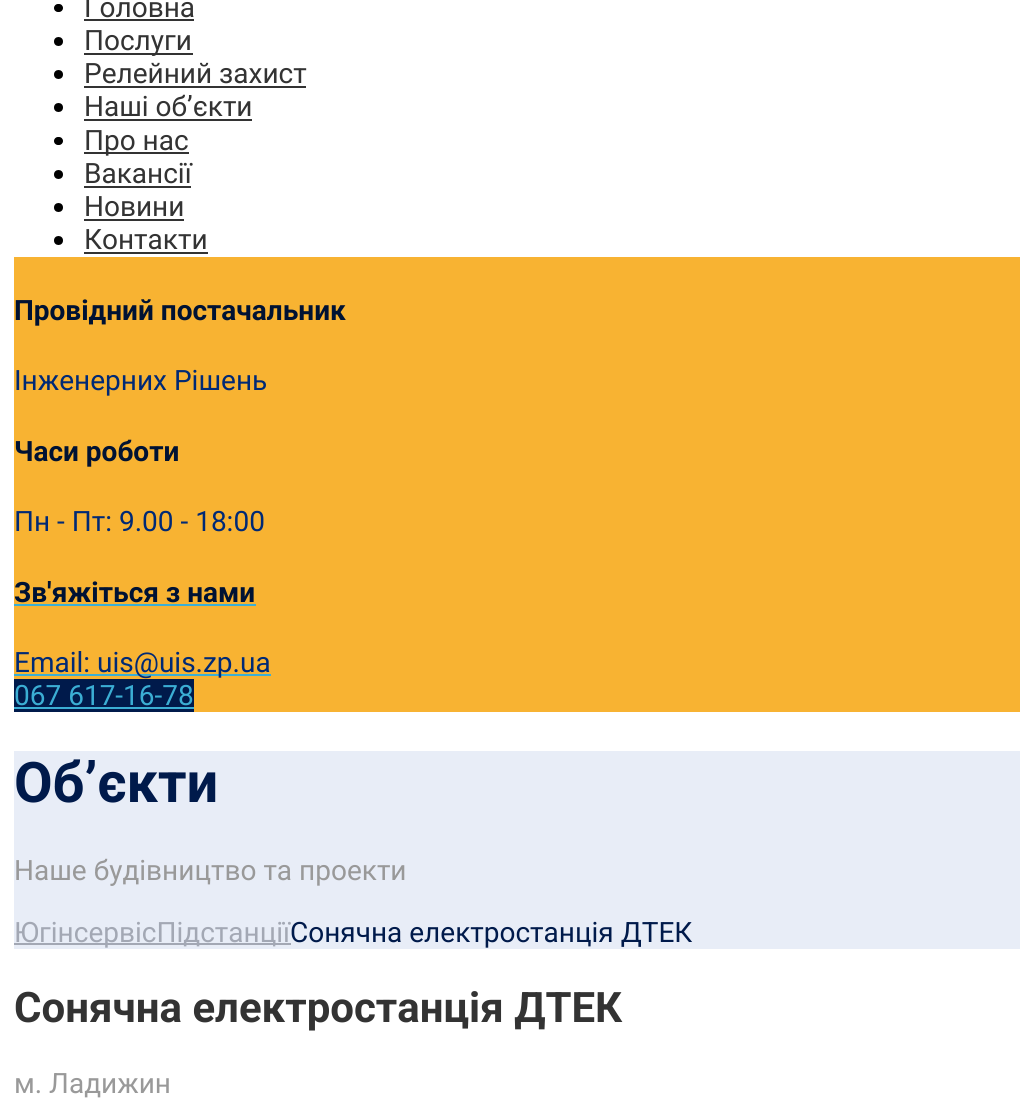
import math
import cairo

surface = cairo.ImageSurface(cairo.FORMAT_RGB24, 1034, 1112)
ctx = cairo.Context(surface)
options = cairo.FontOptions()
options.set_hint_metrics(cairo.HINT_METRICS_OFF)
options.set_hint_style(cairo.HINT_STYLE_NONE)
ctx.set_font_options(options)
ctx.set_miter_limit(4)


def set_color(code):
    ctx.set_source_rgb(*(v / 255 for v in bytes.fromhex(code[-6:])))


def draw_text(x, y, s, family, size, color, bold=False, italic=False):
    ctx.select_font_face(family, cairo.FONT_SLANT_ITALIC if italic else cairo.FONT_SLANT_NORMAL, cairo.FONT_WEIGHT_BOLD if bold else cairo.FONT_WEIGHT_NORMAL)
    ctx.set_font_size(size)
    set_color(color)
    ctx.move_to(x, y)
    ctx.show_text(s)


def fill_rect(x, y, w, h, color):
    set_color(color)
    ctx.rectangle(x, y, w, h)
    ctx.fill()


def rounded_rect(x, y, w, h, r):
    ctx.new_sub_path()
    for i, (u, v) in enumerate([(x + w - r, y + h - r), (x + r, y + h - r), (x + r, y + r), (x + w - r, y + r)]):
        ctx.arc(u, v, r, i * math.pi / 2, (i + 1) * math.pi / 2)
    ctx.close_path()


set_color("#ffffff")
ctx.paint()
fill_rect(14, 257, 1006, 455, "#f8b332")
set_color("#000000")
rounded_rect(54, 4, 9, 8, 4)
ctx.fill()
draw_text(84, 17, "Головна", "Roboto", 28, "#333333")
fill_rect(84, 19, 110, 2, "#333333")
set_color("#000000")
ctx.new_path()
ctx.arc(58.5, 41.5, 4.5, 0, 2 * math.pi)
ctx.fill()
fill_rect(84, 53, 109, 2, "#333333")
draw_text(84, 50, "Послуги", "Roboto", 28, "#333333")
set_color("#000000")
ctx.new_path()
ctx.arc(58.5, 74.5, 4.5, 0, 2 * math.pi)
ctx.fill()
draw_text(84, 83, "Релейний захист", "Roboto", 28, "#333333")
fill_rect(84, 86, 222, 2, "#333333")
set_color("#000000")
ctx.new_path()
ctx.arc(58.5, 107.5, 4.5, 0, 2 * math.pi)
ctx.fill()
draw_text(84, 116, "Наші об’єкти", "Roboto", 28, "#333333")
fill_rect(84, 119, 168, 2, "#333333")
set_color("#000000")
rounded_rect(54, 137, 9, 8, 4)
ctx.fill()
fill_rect(84, 152, 105, 2, "#333333")
draw_text(84, 150, "Про нас", "Roboto", 28, "#333333")
set_color("#000000")
ctx.new_path()
ctx.arc(58.5, 174.5, 4.5, 0, 2 * math.pi)
ctx.fill()
draw_text(84, 183, "Вакансії", "Roboto", 28, "#333333")
fill_rect(84, 186, 107, 2, "#333333")
set_color("#000000")
ctx.new_path()
ctx.arc(58.5, 207.5, 4.5, 0, 2 * math.pi)
ctx.fill()
draw_text(84, 216, "Новини", "Roboto", 28, "#333333")
fill_rect(84, 219, 100, 2, "#333333")
set_color("#000000")
ctx.new_path()
ctx.arc(58.5, 240.5, 4.5, 0, 2 * math.pi)
ctx.fill()
draw_text(84, 249, "Контакти", "Roboto", 28, "#333333")
fill_rect(84, 252, 124, 2, "#333333")
draw_text(14, 320, "Провідний постачальник", "Roboto", 28, "#001233", bold=True)
draw_text(14, 390, "Інженерних Рішень", "Roboto", 28, "#002975")
draw_text(14, 461, "Часи роботи", "Roboto", 28, "#001233", bold=True)
draw_text(14, 531, "Пн - Пт: 9.00 - 18:00", "Roboto", 28, "#002975")
draw_text(14, 602, "Зв'яжіться з нами", "Roboto", 28, "#001233", bold=True)
fill_rect(14, 604, 242, 2, "#3baed4")
fill_rect(14, 674, 257, 2, "#3baed4")
draw_text(14, 672, "Email: uis@uis.zp.ua", "Roboto", 28, "#002975")
fill_rect(14, 679, 180, 33, "#001a4b")
draw_text(14, 705, "067 617-16-78", "Roboto", 28, "#3baed4")
fill_rect(14, 707, 180, 2, "#3baed4")
fill_rect(14, 751, 1006, 198, "#e8edf7")
draw_text(14, 802, "Об’єкти", "Roboto", 56, "#001a4b", bold=True)
draw_text(14, 880, "Наше будівництво та проекти", "Roboto", 28, "#999999")
fill_rect(14, 943, 277, 2, "#a3a8b4")
draw_text(14, 942, "ЮгінсервісПідстанції", "Roboto", 28, "#a3a8b4")
draw_text(290, 942, "Cонячна електростанція ДТЕК", "Roboto", 28, "#001a4b")
draw_text(14, 1022, "Cонячна електростанція ДТЕК", "Roboto", 42, "#333333", bold=True)
draw_text(14, 1093, "м. Ладижин", "Roboto", 28, "#999999")
surface.write_to_png("output.png")
